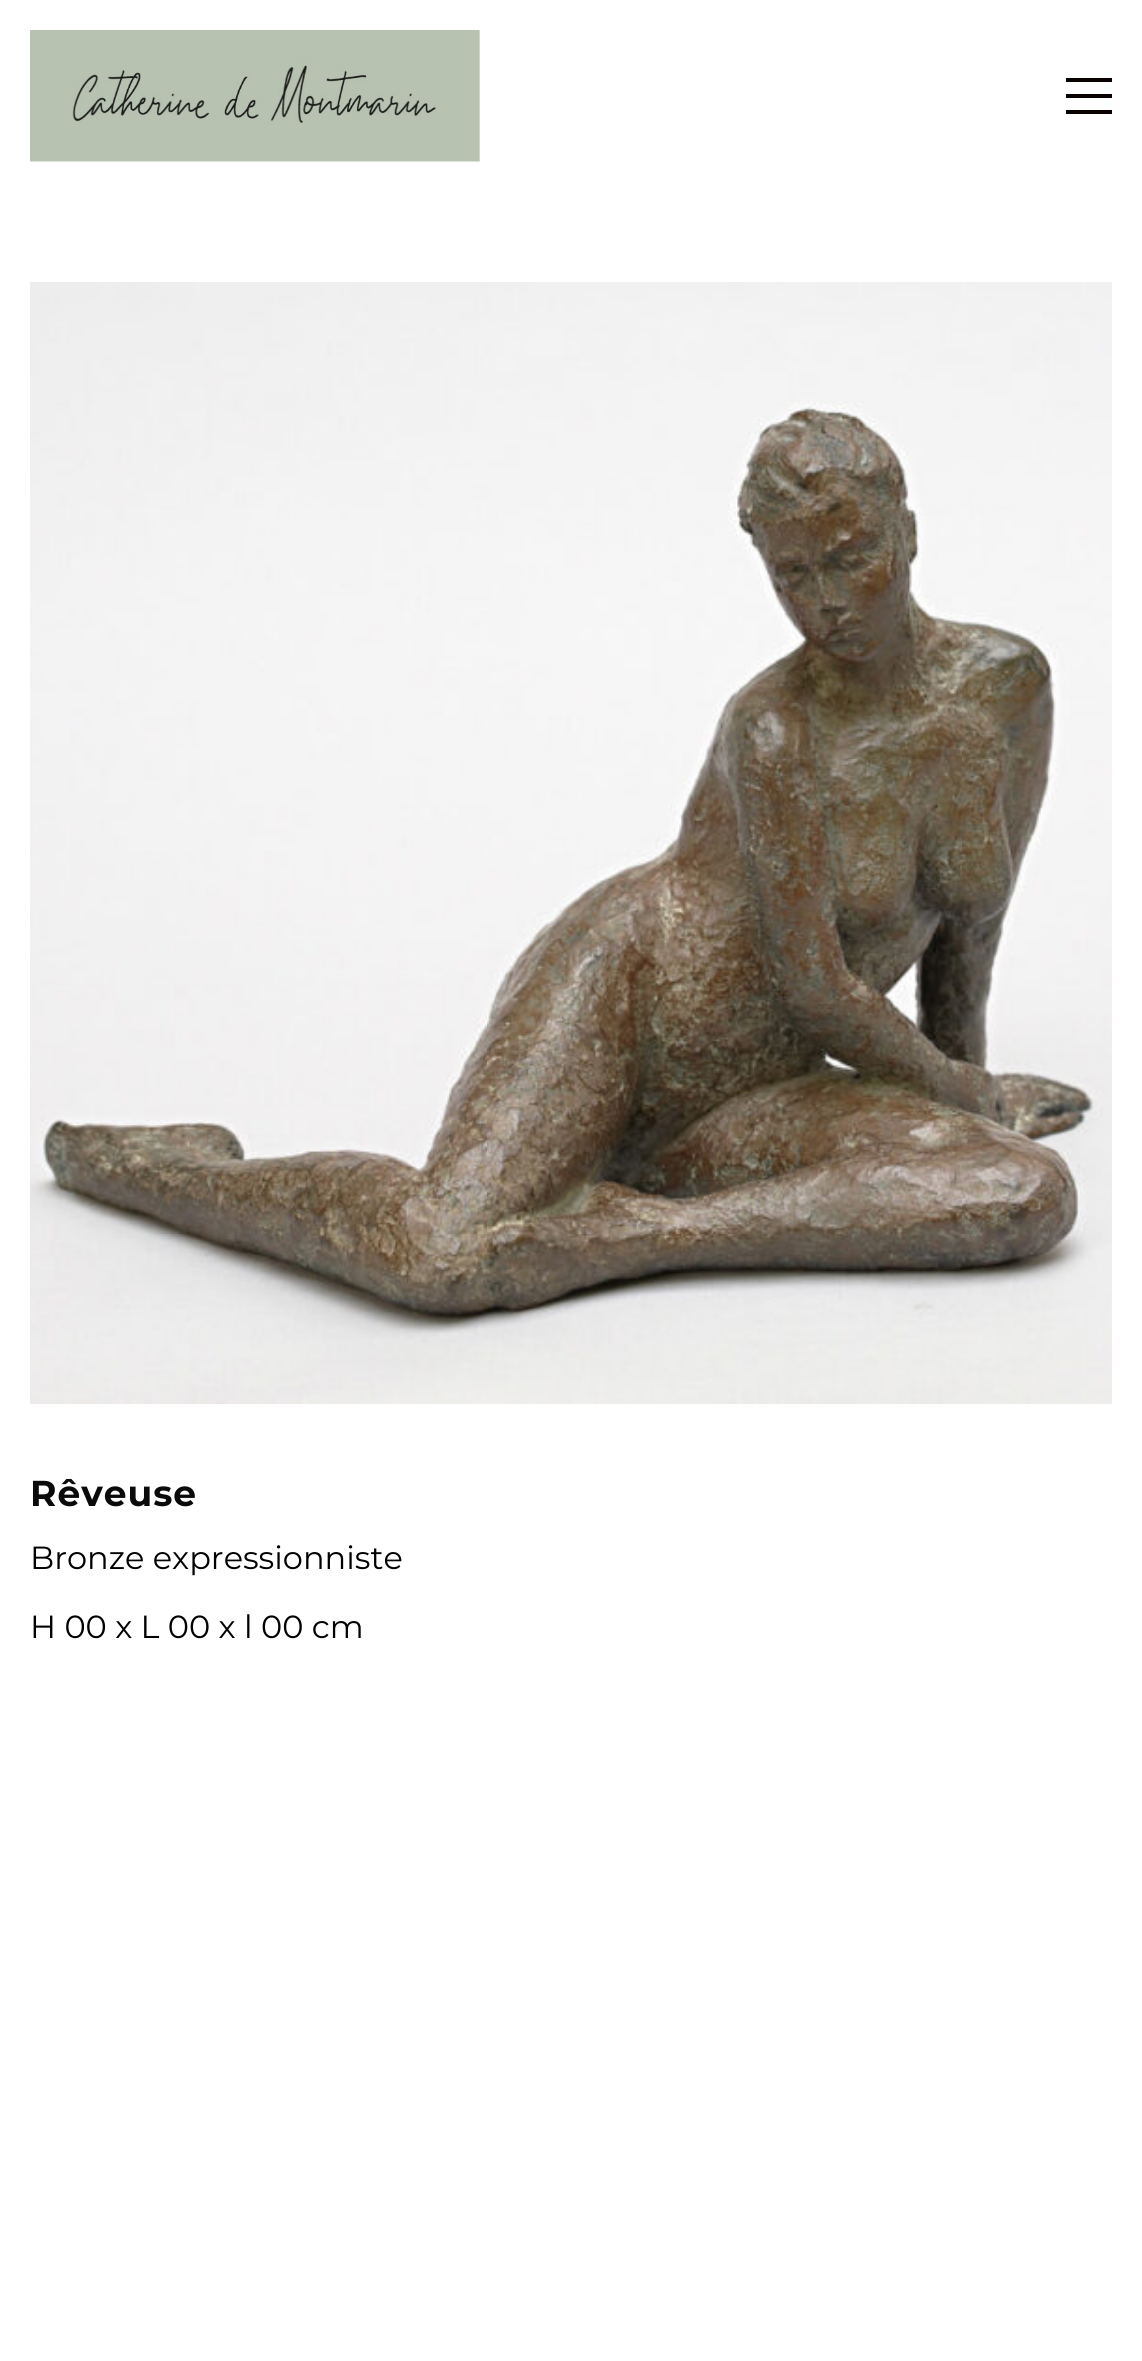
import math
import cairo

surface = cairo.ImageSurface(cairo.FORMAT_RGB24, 1142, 2361)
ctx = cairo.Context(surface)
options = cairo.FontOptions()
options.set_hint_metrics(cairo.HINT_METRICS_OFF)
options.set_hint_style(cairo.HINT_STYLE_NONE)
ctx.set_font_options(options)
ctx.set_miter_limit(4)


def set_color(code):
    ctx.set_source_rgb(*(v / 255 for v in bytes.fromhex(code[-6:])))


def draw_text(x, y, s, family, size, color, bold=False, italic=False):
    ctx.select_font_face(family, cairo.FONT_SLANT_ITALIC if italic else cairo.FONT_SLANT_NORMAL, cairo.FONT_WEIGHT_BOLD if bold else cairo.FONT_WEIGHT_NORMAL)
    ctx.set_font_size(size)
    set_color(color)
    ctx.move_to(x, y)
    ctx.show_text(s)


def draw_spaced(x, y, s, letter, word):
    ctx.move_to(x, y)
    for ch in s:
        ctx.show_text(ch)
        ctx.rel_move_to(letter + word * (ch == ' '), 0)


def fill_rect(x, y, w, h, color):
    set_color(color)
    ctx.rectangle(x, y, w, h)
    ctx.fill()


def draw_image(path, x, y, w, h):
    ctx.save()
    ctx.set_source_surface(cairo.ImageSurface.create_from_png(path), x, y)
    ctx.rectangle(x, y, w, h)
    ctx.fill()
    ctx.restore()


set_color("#ffffff")
ctx.paint()
draw_image("assets/img1.png", 30, 30, 450, 132)
fill_rect(1066, 78, 46, 4, "#0a0101")
fill_rect(1066, 94, 46, 4, "#0a0101")
fill_rect(1066, 110, 46, 4, "#0a0101")
draw_image("assets/img2.png", 30, 282, 1082, 1122)
ctx.select_font_face("Montserrat", cairo.FONT_SLANT_NORMAL, cairo.FONT_WEIGHT_BOLD)
ctx.set_font_size(36)
set_color("#0a0a0a")
draw_spaced(30, 1506, "Rêveuse", 1, 0)
draw_text(30, 1569, "Bronze expressionniste", "Montserrat", 32, "#000000")
draw_text(30, 1638, "H 00 x L 00 x l 00 cm", "Montserrat", 32, "#000000")
surface.write_to_png("output.png")
